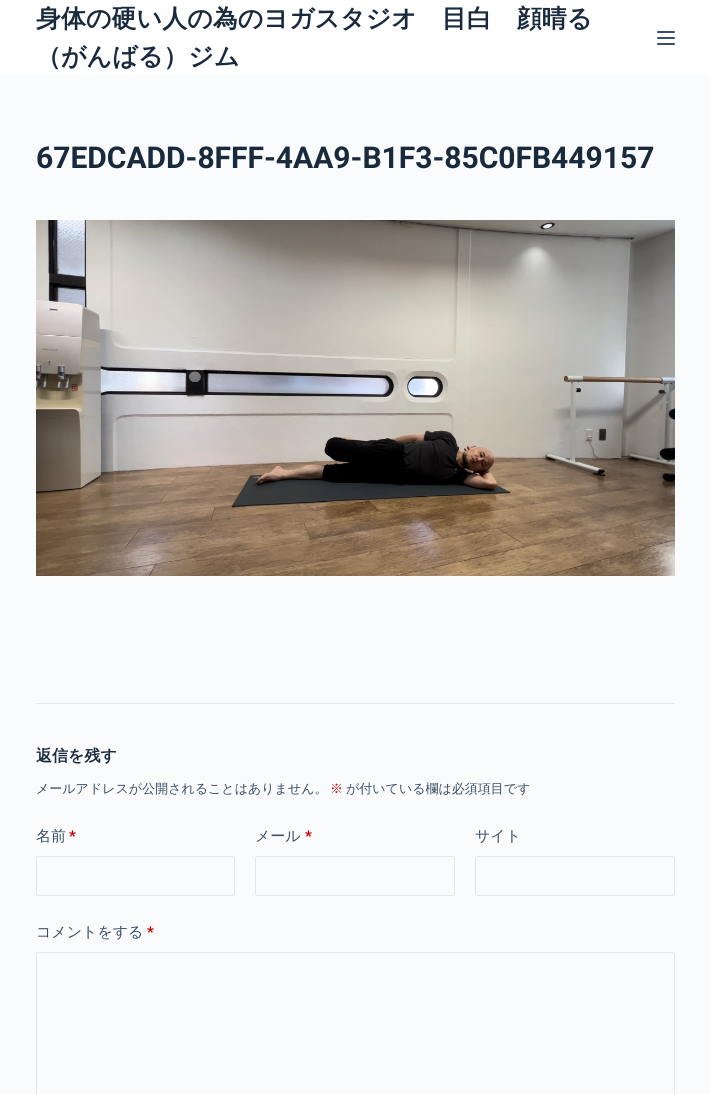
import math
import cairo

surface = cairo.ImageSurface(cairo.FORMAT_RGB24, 710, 1094)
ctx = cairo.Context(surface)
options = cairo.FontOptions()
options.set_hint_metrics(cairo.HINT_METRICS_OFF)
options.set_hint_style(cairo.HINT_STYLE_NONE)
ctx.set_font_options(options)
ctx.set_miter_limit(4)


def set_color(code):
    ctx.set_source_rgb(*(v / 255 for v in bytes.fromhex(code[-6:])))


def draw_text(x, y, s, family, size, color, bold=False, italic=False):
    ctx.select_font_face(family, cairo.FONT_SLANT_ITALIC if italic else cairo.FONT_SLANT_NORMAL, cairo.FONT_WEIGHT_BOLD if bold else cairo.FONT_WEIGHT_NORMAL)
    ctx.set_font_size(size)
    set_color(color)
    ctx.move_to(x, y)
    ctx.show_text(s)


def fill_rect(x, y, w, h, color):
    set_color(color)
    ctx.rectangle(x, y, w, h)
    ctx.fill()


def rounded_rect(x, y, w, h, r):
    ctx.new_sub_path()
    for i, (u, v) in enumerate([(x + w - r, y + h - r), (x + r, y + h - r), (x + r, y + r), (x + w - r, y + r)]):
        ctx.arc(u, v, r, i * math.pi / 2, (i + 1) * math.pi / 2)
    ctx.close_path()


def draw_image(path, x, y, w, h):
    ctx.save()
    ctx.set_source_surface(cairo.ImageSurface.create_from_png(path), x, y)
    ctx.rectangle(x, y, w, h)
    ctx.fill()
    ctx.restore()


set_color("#fafbfc")
ctx.paint()
fill_rect(0, 0, 710, 75, "#ffffff")
draw_text(36, 27, "身体の硬い人の為のヨガスタジオ　目白　顔晴る", "WenQuanYi Zen Hei", 25, "#192a3d", bold=True)
draw_text(36, 65, "（がんばる）ジム", "WenQuanYi Zen Hei", 25, "#192a3d", bold=True)
set_color("#3a4f66")
rounded_rect(657, 31, 18, 2, 1)
ctx.fill()
rounded_rect(657, 37, 18, 2, 1)
ctx.fill()
rounded_rect(657, 43, 18, 2, 1)
ctx.fill()
draw_text(36, 168, "67EDCADD-8FFF-4AA9-B1F3-85C0FB449157", "Roboto", 30, "#192a3d", bold=True)
draw_image("assets/img1.png", 36, 220, 639, 356)
fill_rect(36, 703, 639, 1, "#e1e8ed")
draw_text(36, 761, "返信を残す", "WenQuanYi Zen Hei", 16, "#192a3d", bold=True)
draw_text(36, 793, "メールアドレスが公開されることはありません。", "WenQuanYi Zen Hei Medium", 13, "#3a4f66")
draw_text(330, 793, "※", "WenQuanYi Zen Hei Medium", 13, "#cc0000")
draw_text(346, 793, "が付いている欄は必須項目です", "WenQuanYi Zen Hei Medium", 13, "#3a4f66")
draw_text(36, 841, "名前", "WenQuanYi Zen Hei Medium", 15, "#3a4f66")
draw_text(69, 841, "*", "Roboto", 15, "#cc0000", bold=True)
rounded_rect(36.5, 856.5, 198, 39, 2.5)
set_color("#e1e8ed")
ctx.set_line_width(1)
ctx.stroke()
draw_text(255, 841, "メール", "WenQuanYi Zen Hei Medium", 15, "#3a4f66")
draw_text(305, 841, "*", "Roboto", 15, "#cc0000", bold=True)
rounded_rect(255.5, 856.5, 199, 39, 2.5)
set_color("#e1e8ed")
ctx.stroke()
draw_text(475, 841, "サイト", "WenQuanYi Zen Hei Medium", 15, "#3a4f66")
rounded_rect(475.5, 856.5, 199, 39, 2.5)
set_color("#e1e8ed")
ctx.stroke()
draw_text(36, 937, "コメントをする", "WenQuanYi Zen Hei Medium", 15, "#3a4f66")
draw_text(147, 937, "*", "Roboto", 15, "#cc0000", bold=True)
rounded_rect(36.5, 952.5, 638, 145, 2.5)
set_color("#e1e8ed")
ctx.stroke()
surface.write_to_png("output.png")
